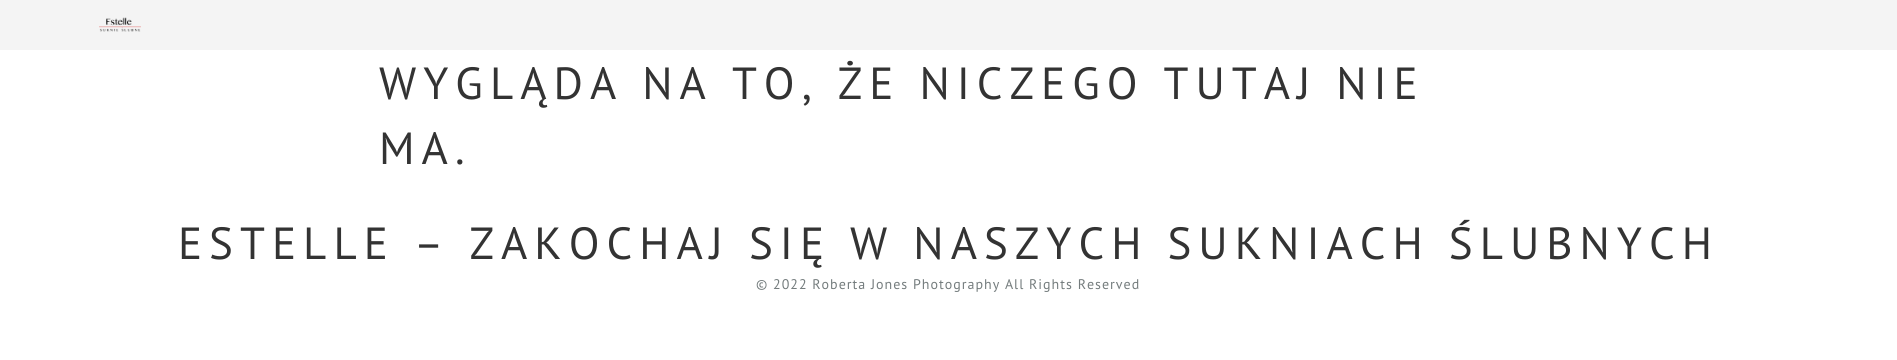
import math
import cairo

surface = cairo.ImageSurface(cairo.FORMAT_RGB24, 1897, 360)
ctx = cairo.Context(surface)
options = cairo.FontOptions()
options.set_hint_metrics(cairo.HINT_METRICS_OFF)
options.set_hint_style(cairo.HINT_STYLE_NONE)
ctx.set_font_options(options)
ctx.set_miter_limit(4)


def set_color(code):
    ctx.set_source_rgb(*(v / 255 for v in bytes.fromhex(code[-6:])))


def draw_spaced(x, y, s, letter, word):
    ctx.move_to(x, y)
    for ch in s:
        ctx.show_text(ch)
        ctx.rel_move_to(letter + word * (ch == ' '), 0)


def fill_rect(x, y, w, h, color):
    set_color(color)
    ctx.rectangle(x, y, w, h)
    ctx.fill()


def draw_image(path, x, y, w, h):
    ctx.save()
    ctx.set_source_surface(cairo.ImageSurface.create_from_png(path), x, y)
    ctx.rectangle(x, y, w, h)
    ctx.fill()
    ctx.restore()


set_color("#ffffff")
ctx.paint()
fill_rect(0, 0, 1897, 50, "#f4f4f4")
draw_image("assets/img1.png", 99, 17, 42, 15)
ctx.select_font_face("PT Sans")
ctx.set_font_size(45)
set_color("#333333")
draw_spaced(379, 99, "WYGLĄDA NA TO, ŻE NICZEGO TUTAJ NIE", 7, 0)
draw_spaced(379, 164, "MA.", 7, 0)
draw_spaced(178, 259, "ESTELLE – ZAKOCHAJ SIĘ W NASZYCH SUKNIACH ŚLUBNYCH", 7, 0)
ctx.set_font_size(14)
set_color("#747c7d")
draw_spaced(756, 289, "© 2022 Roberta Jones Photography All Rights Reserved", 1, 0)
surface.write_to_png("output.png")
